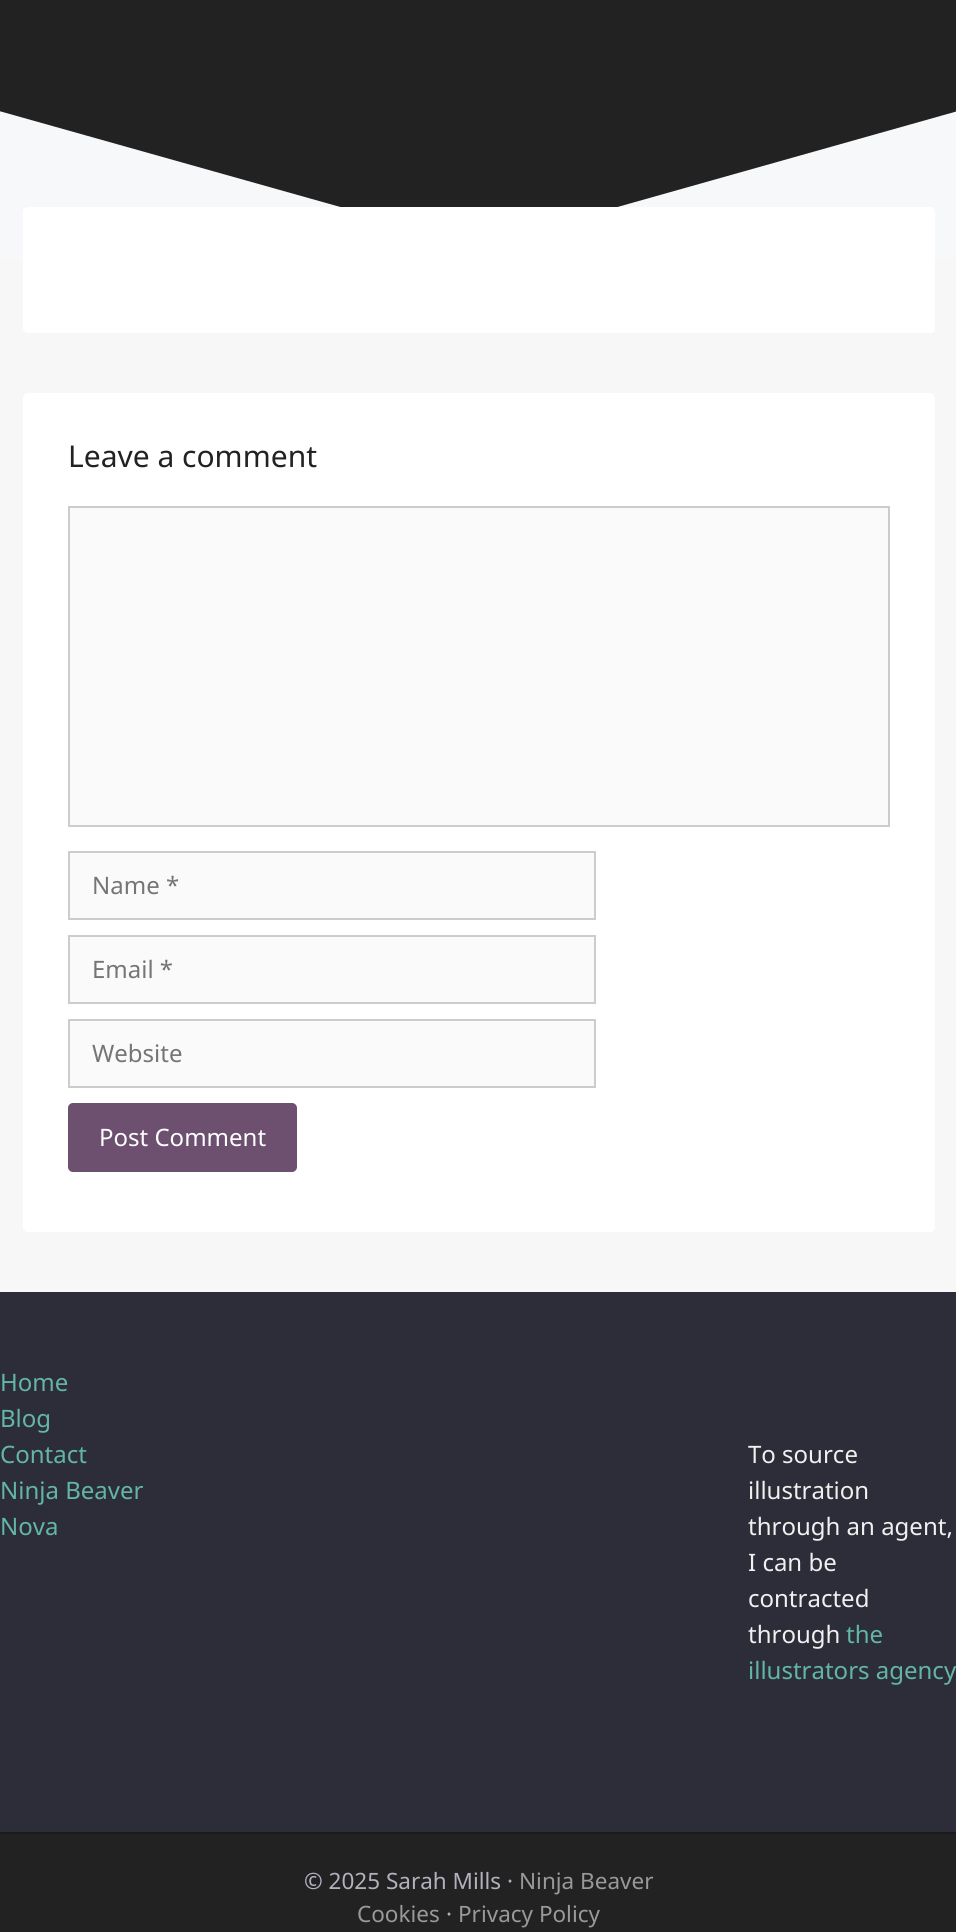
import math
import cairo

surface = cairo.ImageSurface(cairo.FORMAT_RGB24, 956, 1932)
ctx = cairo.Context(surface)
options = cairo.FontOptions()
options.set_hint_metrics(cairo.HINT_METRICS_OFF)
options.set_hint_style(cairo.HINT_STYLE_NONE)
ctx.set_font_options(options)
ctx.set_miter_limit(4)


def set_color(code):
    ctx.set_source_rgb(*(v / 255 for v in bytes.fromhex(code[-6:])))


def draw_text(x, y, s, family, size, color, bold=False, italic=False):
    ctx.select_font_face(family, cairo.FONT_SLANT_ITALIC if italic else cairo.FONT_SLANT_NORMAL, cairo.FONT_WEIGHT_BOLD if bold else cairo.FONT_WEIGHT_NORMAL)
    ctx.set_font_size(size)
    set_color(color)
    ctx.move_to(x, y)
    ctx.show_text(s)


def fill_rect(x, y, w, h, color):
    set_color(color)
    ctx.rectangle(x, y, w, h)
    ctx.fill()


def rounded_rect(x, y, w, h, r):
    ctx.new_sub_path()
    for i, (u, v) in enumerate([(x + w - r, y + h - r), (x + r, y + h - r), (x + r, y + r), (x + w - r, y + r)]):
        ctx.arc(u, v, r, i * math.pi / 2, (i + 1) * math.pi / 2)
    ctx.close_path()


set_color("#f7f7f7")
ctx.paint()
fill_rect(0, 0, 956, 207, "#222222")
ctx.save()
ctx.rectangle(0, 111, 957, 149)
ctx.clip()
set_color("#f7f8f9")
ctx.new_path()
ctx.move_to(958, 261)
ctx.line_to(-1, 261)
ctx.line_to(-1, 111)
ctx.line_to(479, 246)
ctx.line_to(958, 111)
ctx.close_path()
ctx.fill()
ctx.restore()
set_color("#ffffff")
rounded_rect(23, 207, 912, 126, 5)
ctx.fill()
rounded_rect(23, 393, 912, 839, 5)
ctx.fill()
draw_text(68, 467, "Leave a comment", "Noto Sans", 30, "#222222")
set_color("#fafafa")
ctx.rectangle(69, 507, 820, 319)
ctx.fill_preserve()
set_color("#cccccc")
ctx.stroke()
set_color("#fafafa")
ctx.rectangle(69, 852, 526, 67)
ctx.fill_preserve()
set_color("#cccccc")
ctx.stroke()
draw_text(92, 894, "Name *", "Noto Sans", 24, "#757575")
set_color("#fafafa")
ctx.rectangle(69, 936, 526, 67)
ctx.fill_preserve()
set_color("#cccccc")
ctx.stroke()
draw_text(92, 978, "Email *", "Noto Sans", 24, "#757575")
set_color("#fafafa")
ctx.rectangle(69, 1020, 526, 67)
ctx.fill_preserve()
set_color("#cccccc")
ctx.stroke()
draw_text(92, 1062, "Website", "Noto Sans", 24, "#757575")
set_color("#6d5070")
rounded_rect(68, 1103, 229, 69, 5)
ctx.fill()
draw_text(99, 1146, "Post Comment", "Noto Sans", 24, "#ffffff")
fill_rect(0, 1292, 956, 540, "#2c2d38")
draw_text(0, 1391, "Home", "Noto Sans", 24, "#63b5a8")
draw_text(0, 1427, "Blog", "Noto Sans", 24, "#63b5a8")
draw_text(0, 1463, "Contact", "Noto Sans", 24, "#63b5a8")
draw_text(0, 1499, "Ninja Beaver", "Noto Sans", 24, "#63b5a8")
draw_text(0, 1535, "Nova", "Noto Sans", 24, "#63b5a8")
draw_text(748, 1463, "To source", "Noto Sans", 24, "#f0f0f0")
draw_text(748, 1499, "illustration", "Noto Sans", 24, "#f0f0f0")
draw_text(748, 1535, "through an agent,", "Noto Sans", 24, "#f0f0f0")
draw_text(748, 1571, "I can be", "Noto Sans", 24, "#f0f0f0")
draw_text(748, 1607, "contracted", "Noto Sans", 24, "#f0f0f0")
draw_text(748, 1643, "through", "Noto Sans", 24, "#f0f0f0")
draw_text(846, 1643, "the", "Noto Sans", 24, "#63b5a8")
draw_text(748, 1679, "illustrators agency", "Noto Sans", 24, "#63b5a8")
fill_rect(0, 1834, 956, 98, "#222222")
fill_rect(0, 1832, 956, 2, "#1b1b1b")
draw_text(304, 1889, "© 2025 Sarah Mills ·", "Noto Sans", 22.5, "#b2b2be")
draw_text(519, 1889, "Ninja Beaver", "Noto Sans", 22.5, "#999999")
draw_text(357, 1922, "Cookies", "Noto Sans", 22.5, "#999999")
draw_text(446, 1922, "·", "Noto Sans", 22.5, "#b2b2be")
draw_text(458, 1922, "Privacy Policy", "Noto Sans", 22.5, "#999999")
surface.write_to_png("output.png")
